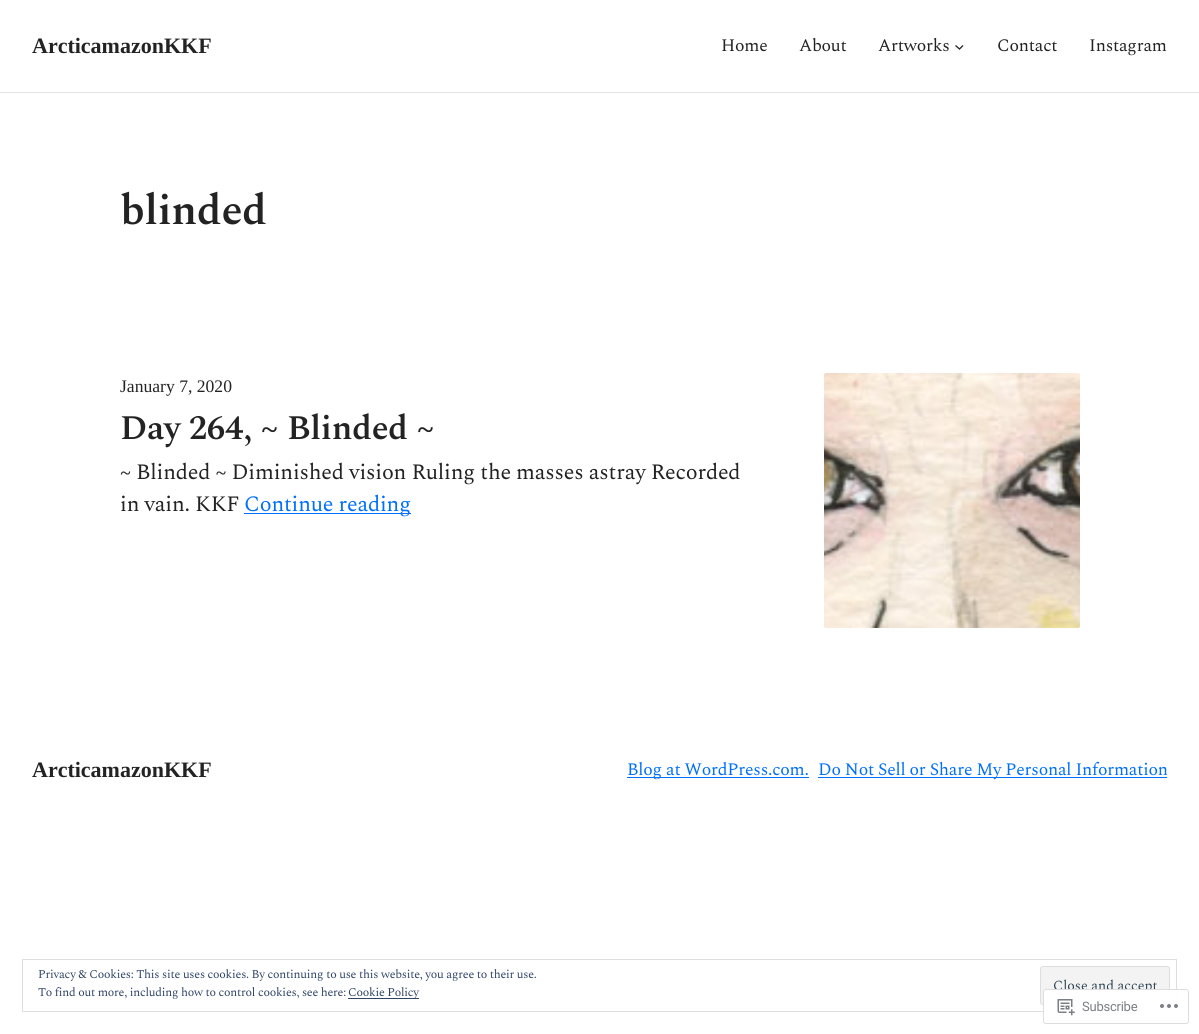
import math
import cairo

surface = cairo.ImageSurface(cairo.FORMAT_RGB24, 1199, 1034)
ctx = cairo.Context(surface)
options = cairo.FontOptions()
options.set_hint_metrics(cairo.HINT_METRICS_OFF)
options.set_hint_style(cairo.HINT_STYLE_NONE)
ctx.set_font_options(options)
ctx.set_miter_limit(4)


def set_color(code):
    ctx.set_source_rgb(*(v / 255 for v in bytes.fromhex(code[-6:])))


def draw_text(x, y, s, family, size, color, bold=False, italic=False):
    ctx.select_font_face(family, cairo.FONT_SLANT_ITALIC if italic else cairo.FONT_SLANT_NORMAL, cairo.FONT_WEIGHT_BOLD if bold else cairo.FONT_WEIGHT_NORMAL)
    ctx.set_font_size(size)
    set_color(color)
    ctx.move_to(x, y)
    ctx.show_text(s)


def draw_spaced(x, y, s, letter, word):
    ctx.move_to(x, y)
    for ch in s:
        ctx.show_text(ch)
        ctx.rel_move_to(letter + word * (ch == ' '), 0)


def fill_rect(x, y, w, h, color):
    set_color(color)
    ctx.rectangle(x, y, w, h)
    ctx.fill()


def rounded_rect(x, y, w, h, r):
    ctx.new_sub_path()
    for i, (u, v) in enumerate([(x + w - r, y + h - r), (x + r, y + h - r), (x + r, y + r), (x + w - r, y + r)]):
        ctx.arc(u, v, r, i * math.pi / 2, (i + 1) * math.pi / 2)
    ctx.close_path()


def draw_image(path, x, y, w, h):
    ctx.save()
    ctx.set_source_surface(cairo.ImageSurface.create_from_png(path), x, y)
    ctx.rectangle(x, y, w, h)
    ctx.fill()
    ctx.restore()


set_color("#ffffff")
ctx.paint()
fill_rect(0, 92, 1199, 1, "#e5e5e5")
draw_text(32, 53, "ArcticamazonKKF", "Liberation Serif", 22, "#232323", bold=True)
ctx.select_font_face("Spectral")
ctx.set_font_size(17.6)
draw_spaced(721, 51, "Home", -0.24, 0)
draw_spaced(799, 51, "About", -0.24, 0)
draw_spaced(878, 51, "Artworks", -0.24, 0)
ctx.new_path()
ctx.move_to(955.5, 45.5)
ctx.line_to(959.5, 49)
ctx.line_to(963, 45.5)
ctx.set_line_width(1.3)
ctx.stroke()
draw_spaced(997, 51, "Contact", -0.24, 0)
draw_spaced(1089, 51, "Instagram", -0.24, 0)
ctx.select_font_face("Spectral SemiBold")
ctx.set_font_size(43)
draw_spaced(120, 224, "blinded", -0.24, 0)
draw_text(120, 392, "January 7, 2020", "Liberation Serif", 17.6, "#232323")
ctx.select_font_face("Spectral SemiBold")
ctx.set_font_size(34.4)
draw_spaced(120, 439, "Day 264, ~ Blinded ~", -0.24, 0)
ctx.select_font_face("Spectral")
ctx.set_font_size(22)
draw_spaced(120, 479, "~ Blinded ~ Diminished vision Ruling the masses astray Recorded", -0.24, 0)
draw_spaced(120, 511, "in vain. KKF", -0.24, 0)
fill_rect(244, 513, 167, 1, "#0070f6")
draw_spaced(244, 511, "Continue reading", -0.24, 0)
draw_image("assets/img1.png", 824, 373, 256, 255)
draw_text(32, 777, "ArcticamazonKKF", "Liberation Serif", 22, "#232323", bold=True)
fill_rect(627, 777, 182, 1, "#0070f6")
ctx.select_font_face("Spectral")
ctx.set_font_size(17.6)
draw_spaced(627, 775, "Blog at WordPress.com.", -0.24, 0)
fill_rect(818, 777, 349, 1, "#0070f6")
draw_spaced(818, 775, "Do Not Sell or Share My Personal Information", -0.24, 0)
ctx.rectangle(22.5, 959.5, 1154, 52)
set_color("#dedede")
ctx.set_line_width(1)
ctx.stroke()
ctx.set_font_size(12)
set_color("#2e4467")
draw_spaced(38, 978, "Privacy & Cookies: This site uses cookies. By continuing to use this website, you agree to their use.", -0.24, 0)
draw_spaced(38, 996, "To find out more, including how to control cookies, see here:", -0.24, 0)
fill_rect(348, 998, 71, 1, "#2e4467")
draw_spaced(348, 996, "Cookie Policy", -0.24, 0)
set_color("#f3f3f3")
rounded_rect(1040.5, 966.5, 129, 38, 2.5)
ctx.fill_preserve()
set_color("#dedede")
ctx.stroke()
draw_text(1053, 990, "Close and accept", "Spectral", 14, "#2e4453")
ctx.set_source_rgba(1, 1, 1, 0.98)
rounded_rect(1043, 989, 146, 35, 3)
ctx.fill()
rounded_rect(1043.5, 989.5, 145, 34, 2.5)
ctx.set_source_rgba(0.863, 0.863, 0.871, 0.98)
ctx.stroke()
draw_image("assets/img2.png", 1057, 999, 18, 17)
ctx.select_font_face("Roboto")
ctx.set_font_size(13)
set_color("#7b7f84")
draw_spaced(1082, 1011, "Subscribe", -0.24, 0)
draw_image("assets/img3.png", 1160, 1004, 18, 4)
surface.write_to_png("output.png")
